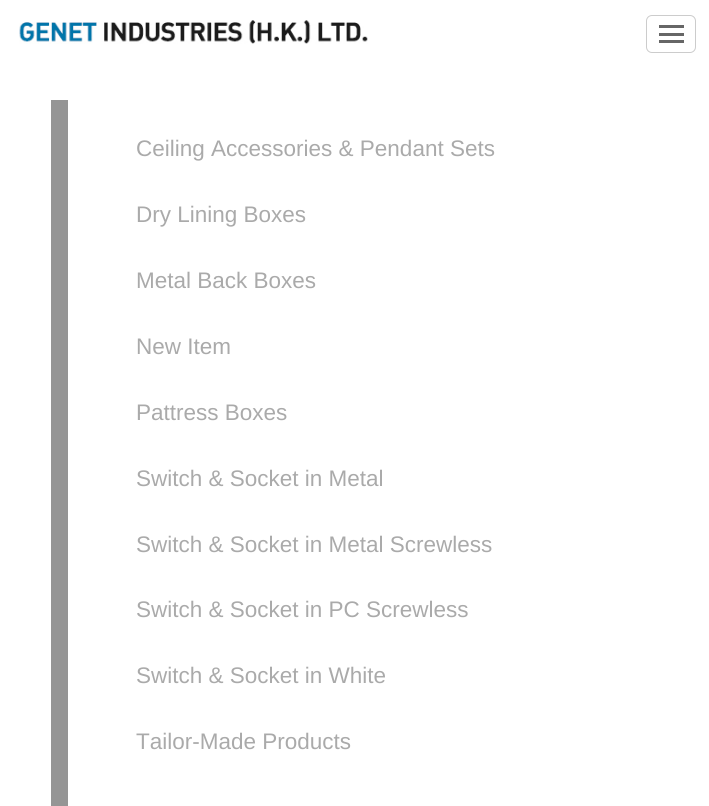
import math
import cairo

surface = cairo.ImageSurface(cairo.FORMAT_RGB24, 709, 806)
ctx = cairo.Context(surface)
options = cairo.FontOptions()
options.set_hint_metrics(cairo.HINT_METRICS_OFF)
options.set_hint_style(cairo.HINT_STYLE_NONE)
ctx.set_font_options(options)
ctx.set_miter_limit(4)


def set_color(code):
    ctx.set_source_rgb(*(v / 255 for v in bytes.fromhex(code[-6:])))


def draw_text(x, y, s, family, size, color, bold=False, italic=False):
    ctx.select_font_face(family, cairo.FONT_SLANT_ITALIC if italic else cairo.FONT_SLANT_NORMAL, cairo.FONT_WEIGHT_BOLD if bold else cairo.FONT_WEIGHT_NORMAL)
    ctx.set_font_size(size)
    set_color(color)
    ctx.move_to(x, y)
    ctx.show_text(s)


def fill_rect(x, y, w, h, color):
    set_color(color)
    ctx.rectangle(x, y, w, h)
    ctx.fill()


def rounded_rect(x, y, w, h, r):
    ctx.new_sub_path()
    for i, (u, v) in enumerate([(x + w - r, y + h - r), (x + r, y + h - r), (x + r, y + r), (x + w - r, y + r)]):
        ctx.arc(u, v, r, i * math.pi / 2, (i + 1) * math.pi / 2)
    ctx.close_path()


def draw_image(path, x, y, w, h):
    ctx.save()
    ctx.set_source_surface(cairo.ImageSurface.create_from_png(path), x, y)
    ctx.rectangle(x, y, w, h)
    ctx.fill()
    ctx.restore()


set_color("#ffffff")
ctx.paint()
draw_image("assets/img1.png", 19, 20, 349, 24)
rounded_rect(646.5, 15.5, 49, 37, 5.5)
set_color("#cccccc")
ctx.set_line_width(1)
ctx.stroke()
fill_rect(659, 33, 25, 3, "#666666")
fill_rect(659, 25, 25, 3, "#666666")
fill_rect(659, 40, 25, 3, "#666666")
fill_rect(51, 100, 17, 706, "#959595")
draw_text(136, 156, "Ceiling Accessories & Pendant Sets", "Liberation Sans", 22.5, "#aaaaaa")
draw_text(136, 222, "Dry Lining Boxes", "Liberation Sans", 22.5, "#aaaaaa")
draw_text(136, 288, "Metal Back Boxes", "Liberation Sans", 22.5, "#aaaaaa")
draw_text(136, 354, "New Item", "Liberation Sans", 22.5, "#aaaaaa")
draw_text(136, 420, "Pattress Boxes", "Liberation Sans", 22.5, "#aaaaaa")
draw_text(136, 486, "Switch & Socket in Metal", "Liberation Sans", 22.5, "#aaaaaa")
draw_text(136, 552, "Switch & Socket in Metal Screwless", "Liberation Sans", 22.5, "#aaaaaa")
draw_text(136, 617, "Switch & Socket in PC Screwless", "Liberation Sans", 22.5, "#aaaaaa")
draw_text(136, 683, "Switch & Socket in White", "Liberation Sans", 22.5, "#aaaaaa")
draw_text(136, 749, "Tailor-Made Products", "Liberation Sans", 22.5, "#aaaaaa")
surface.write_to_png("output.png")
